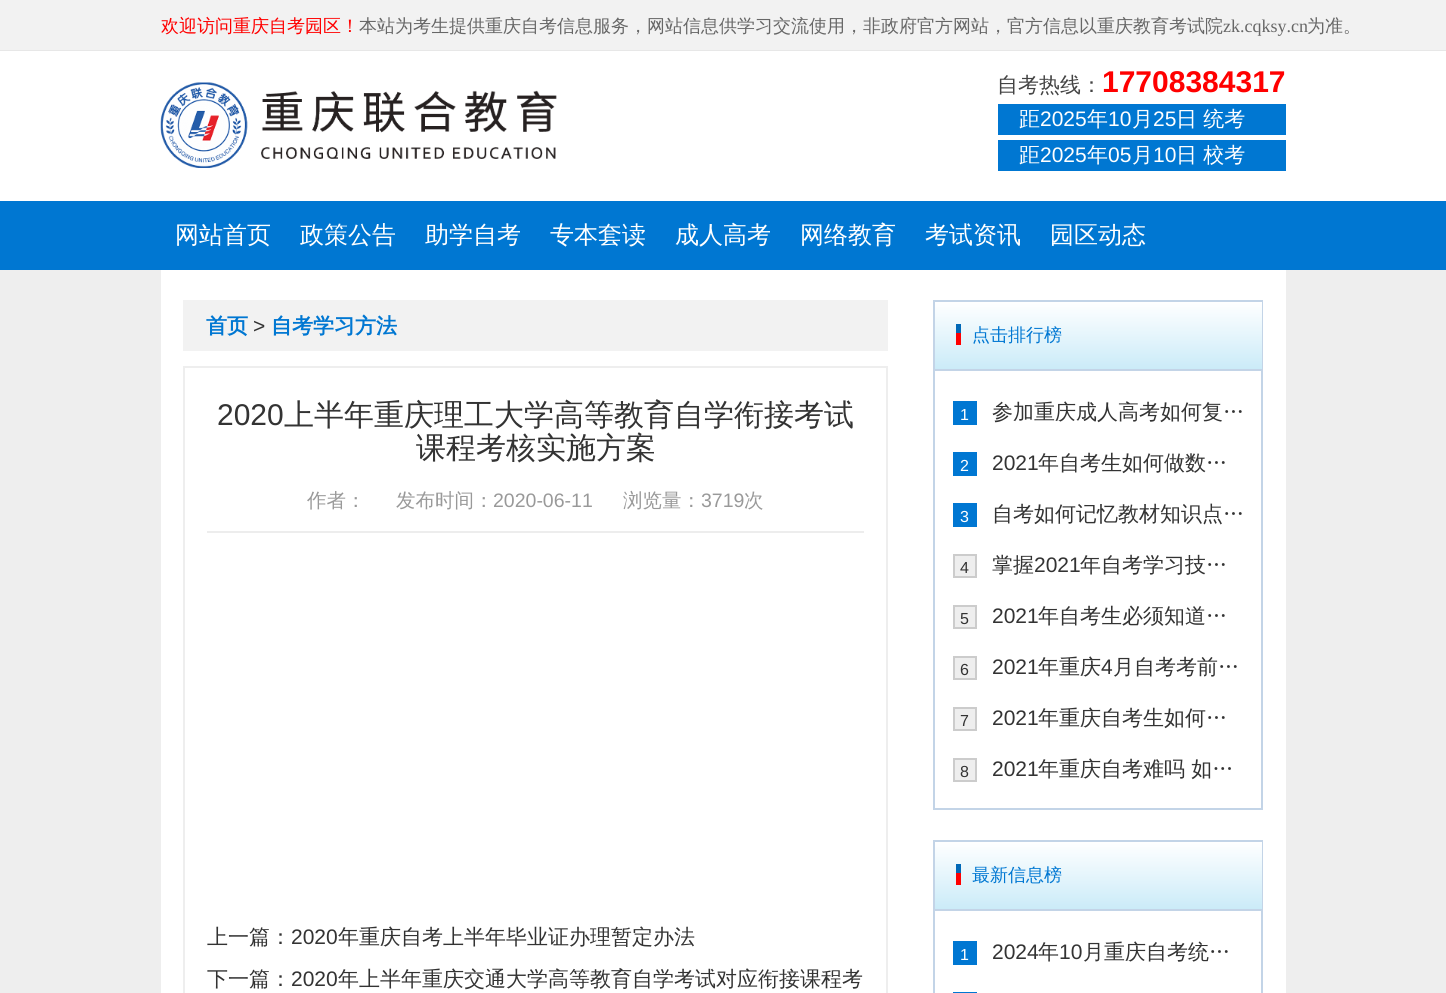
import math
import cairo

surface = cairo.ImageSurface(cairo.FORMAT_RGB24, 1446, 993)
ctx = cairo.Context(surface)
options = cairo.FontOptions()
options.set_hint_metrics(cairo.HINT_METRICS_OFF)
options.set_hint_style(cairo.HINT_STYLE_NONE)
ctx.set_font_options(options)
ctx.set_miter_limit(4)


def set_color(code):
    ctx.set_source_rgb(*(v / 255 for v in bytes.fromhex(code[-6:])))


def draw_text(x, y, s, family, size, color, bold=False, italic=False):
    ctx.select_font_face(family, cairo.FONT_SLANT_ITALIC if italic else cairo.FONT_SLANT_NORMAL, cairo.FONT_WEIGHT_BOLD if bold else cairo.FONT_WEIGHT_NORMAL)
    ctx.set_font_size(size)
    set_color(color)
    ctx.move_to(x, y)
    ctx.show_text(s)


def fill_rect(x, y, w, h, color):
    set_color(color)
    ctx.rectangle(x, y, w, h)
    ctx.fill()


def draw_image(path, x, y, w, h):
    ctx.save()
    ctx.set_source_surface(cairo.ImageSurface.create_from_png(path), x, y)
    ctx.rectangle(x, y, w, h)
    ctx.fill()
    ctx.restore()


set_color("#eeeeee")
ctx.paint()
fill_rect(0, 0, 1446, 50, "#f2f2f2")
fill_rect(0, 50, 1446, 1, "#e7e7e7")
draw_text(161, 32, "欢迎访问重庆自考园区！", "WenQuanYi Zen Hei Medium", 18, "#ff0000")
draw_text(359, 32, "本站为考生提供重庆自考信息服务，网站信息供学习交流使用，非政府官方网站，官方信息以重庆教育考试院", "WenQuanYi Zen Hei Medium", 18, "#676767")
draw_text(1223, 32, "zk.cqksy.cn", "Liberation Serif", 18, "#676767")
draw_text(1307, 32, "为准。", "WenQuanYi Zen Hei Medium", 18, "#676767")
fill_rect(0, 51, 1446, 150, "#ffffff")
draw_image("assets/img1.png", 160, 82, 397, 86)
draw_text(997, 92, "自考热线：", "WenQuanYi Zen Hei Medium", 21, "#444444")
draw_text(1102, 92, "17708384317", "Liberation Sans", 30, "#ff0000", bold=True)
fill_rect(998, 104, 288, 31, "#0077d2")
draw_text(1019, 126, "距", "WenQuanYi Zen Hei Medium", 21, "#ffffff")
draw_text(1040, 126, "2025", "Liberation Sans", 21, "#ffffff")
draw_text(1087, 126, "年", "WenQuanYi Zen Hei Medium", 21, "#ffffff")
draw_text(1108, 126, "10", "Liberation Sans", 21, "#ffffff")
draw_text(1132, 126, "月", "WenQuanYi Zen Hei Medium", 21, "#ffffff")
draw_text(1153, 126, "25", "Liberation Sans", 21, "#ffffff")
draw_text(1176, 126, "日 统考", "WenQuanYi Zen Hei Medium", 21, "#ffffff")
fill_rect(998, 140, 288, 31, "#0077d2")
draw_text(1019, 162, "距", "WenQuanYi Zen Hei Medium", 21, "#ffffff")
draw_text(1040, 162, "2025", "Liberation Sans", 21, "#ffffff")
draw_text(1087, 162, "年", "WenQuanYi Zen Hei Medium", 21, "#ffffff")
draw_text(1108, 162, "05", "Liberation Sans", 21, "#ffffff")
draw_text(1132, 162, "月", "WenQuanYi Zen Hei Medium", 21, "#ffffff")
draw_text(1153, 162, "10", "Liberation Sans", 21, "#ffffff")
draw_text(1176, 162, "日 校考", "WenQuanYi Zen Hei Medium", 21, "#ffffff")
fill_rect(0, 201, 1446, 69, "#0077d2")
draw_text(175, 243, "网站首页", "WenQuanYi Zen Hei Medium", 24, "#ffffff")
draw_text(300, 243, "政策公告", "WenQuanYi Zen Hei Medium", 24, "#ffffff")
draw_text(425, 243, "助学自考", "WenQuanYi Zen Hei Medium", 24, "#ffffff")
draw_text(550, 243, "专本套读", "WenQuanYi Zen Hei Medium", 24, "#ffffff")
draw_text(675, 243, "成人高考", "WenQuanYi Zen Hei Medium", 24, "#ffffff")
draw_text(800, 243, "网络教育", "WenQuanYi Zen Hei Medium", 24, "#ffffff")
draw_text(925, 243, "考试资讯", "WenQuanYi Zen Hei Medium", 24, "#ffffff")
draw_text(1050, 243, "园区动态", "WenQuanYi Zen Hei Medium", 24, "#ffffff")
fill_rect(161, 270, 1125, 723, "#ffffff")
fill_rect(183, 300, 705, 51, "#f2f2f2")
draw_text(206, 333, "首页", "WenQuanYi Zen Hei", 21, "#0077d2", bold=True)
draw_text(253, 333, ">", "Liberation Sans", 21, "#333333")
draw_text(271, 333, "自考学习方法", "WenQuanYi Zen Hei", 21, "#0077d2", bold=True)
ctx.rectangle(184, 367, 703, 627)
set_color("#eeeeee")
ctx.stroke()
draw_text(217, 425, "2020", "Liberation Sans", 30, "#333333")
draw_text(284, 425, "上半年重庆理工大学高等教育自学衔接考试", "WenQuanYi Zen Hei Medium", 30, "#333333")
draw_text(416, 458, "课程考核实施方案", "WenQuanYi Zen Hei Medium", 30, "#333333")
fill_rect(207, 531, 657, 2, "#ededed")
draw_text(307, 507, "作者：", "WenQuanYi Zen Hei Medium", 19.5, "#999999")
draw_text(396, 507, "发布时间：", "WenQuanYi Zen Hei Medium", 19.5, "#999999")
draw_text(493, 507, "2020-06-11", "Liberation Sans", 19.5, "#999999")
draw_text(623, 507, "浏览量：", "WenQuanYi Zen Hei Medium", 19.5, "#999999")
draw_text(701, 507, "3719", "Liberation Sans", 19.5, "#999999")
draw_text(744, 507, "次", "WenQuanYi Zen Hei Medium", 19.5, "#999999")
draw_text(207, 944, "上一篇：", "WenQuanYi Zen Hei Medium", 21, "#333333")
draw_text(291, 944, "2020", "Liberation Sans", 21, "#333333")
draw_text(338, 944, "年重庆自考上半年毕业证办理暂定办法", "WenQuanYi Zen Hei Medium", 21, "#333333")
draw_text(207, 986, "下一篇：", "WenQuanYi Zen Hei Medium", 21, "#333333")
draw_text(291, 986, "2020", "Liberation Sans", 21, "#333333")
draw_text(338, 986, "年上半年重庆交通大学高等教育自学考试对应衔接课程考", "WenQuanYi Zen Hei Medium", 21, "#333333")
ctx.rectangle(934, 301, 328, 508)
set_color("#c3d4e7")
ctx.stroke()
gradient = cairo.LinearGradient(935, 302, 935, 369)
gradient.add_color_stop_rgba(0, 1, 1, 1, 1)
gradient.add_color_stop_rgba(1, 0.796, 0.922, 0.973, 1)
ctx.set_source(gradient)
ctx.rectangle(935, 302, 327, 67)
ctx.fill()
fill_rect(935, 369, 327, 2, "#c3d4e7")
fill_rect(956, 324, 5, 9, "#0168b7")
draw_text(972, 341, "点击排行榜", "WenQuanYi Zen Hei Medium", 18, "#0077d2")
fill_rect(956, 333, 5, 12, "#ff0000")
fill_rect(953, 401, 24, 24, "#0077d2")
draw_text(960, 420, "1", "Liberation Sans", 16, "#ffffff")
draw_text(992, 419, "参加重庆成人高考如何复…", "WenQuanYi Zen Hei Medium", 21, "#333333")
fill_rect(953, 452, 24, 24, "#0077d2")
draw_text(960, 471, "2", "Liberation Sans", 16, "#ffffff")
draw_text(992, 470, "2021", "Liberation Sans", 21, "#333333")
draw_text(1038, 470, "年自考生如何做数…", "WenQuanYi Zen Hei Medium", 21, "#333333")
fill_rect(953, 503, 24, 24, "#0077d2")
draw_text(960, 522, "3", "Liberation Sans", 16, "#ffffff")
draw_text(992, 521, "自考如何记忆教材知识点…", "WenQuanYi Zen Hei Medium", 21, "#333333")
set_color("#eeeeee")
ctx.rectangle(954, 555, 22, 22)
ctx.fill_preserve()
set_color("#cccccc")
ctx.stroke()
draw_text(960, 573, "4", "Liberation Sans", 16, "#333333")
draw_text(992, 572, "掌握", "WenQuanYi Zen Hei Medium", 21, "#333333")
draw_text(1034, 572, "2021", "Liberation Sans", 21, "#333333")
draw_text(1080, 572, "年自考学习技…", "WenQuanYi Zen Hei Medium", 21, "#333333")
set_color("#eeeeee")
ctx.rectangle(954, 606, 22, 22)
ctx.fill_preserve()
set_color("#cccccc")
ctx.stroke()
draw_text(960, 624, "5", "Liberation Sans", 16, "#333333")
draw_text(992, 623, "2021", "Liberation Sans", 21, "#333333")
draw_text(1038, 623, "年自考生必须知道…", "WenQuanYi Zen Hei Medium", 21, "#333333")
set_color("#eeeeee")
ctx.rectangle(954, 657, 22, 22)
ctx.fill_preserve()
set_color("#cccccc")
ctx.stroke()
draw_text(960, 675, "6", "Liberation Sans", 16, "#333333")
draw_text(992, 674, "2021", "Liberation Sans", 21, "#333333")
draw_text(1038, 674, "年重庆", "WenQuanYi Zen Hei Medium", 21, "#333333")
draw_text(1101, 674, "4", "Liberation Sans", 21, "#333333")
draw_text(1113, 674, "月自考考前…", "WenQuanYi Zen Hei Medium", 21, "#333333")
set_color("#eeeeee")
ctx.rectangle(954, 708, 22, 22)
ctx.fill_preserve()
set_color("#cccccc")
ctx.stroke()
draw_text(960, 726, "7", "Liberation Sans", 16, "#333333")
draw_text(992, 725, "2021", "Liberation Sans", 21, "#333333")
draw_text(1038, 725, "年重庆自考生如何…", "WenQuanYi Zen Hei Medium", 21, "#333333")
set_color("#eeeeee")
ctx.rectangle(954, 759, 22, 22)
ctx.fill_preserve()
set_color("#cccccc")
ctx.stroke()
draw_text(960, 777, "8", "Liberation Sans", 16, "#333333")
draw_text(992, 776, "2021", "Liberation Sans", 21, "#333333")
draw_text(1038, 776, "年重庆自考难吗 如…", "WenQuanYi Zen Hei Medium", 21, "#333333")
ctx.rectangle(934, 841, 328, 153)
set_color("#c3d4e7")
ctx.stroke()
gradient = cairo.LinearGradient(935, 842, 935, 909)
gradient.add_color_stop_rgba(0, 1, 1, 1, 1)
gradient.add_color_stop_rgba(1, 0.796, 0.922, 0.973, 1)
ctx.set_source(gradient)
ctx.rectangle(935, 842, 327, 67)
ctx.fill()
fill_rect(935, 909, 327, 2, "#c3d4e7")
fill_rect(956, 864, 5, 9, "#0168b7")
draw_text(972, 881, "最新信息榜", "WenQuanYi Zen Hei Medium", 18, "#0077d2")
fill_rect(956, 873, 5, 12, "#ff0000")
fill_rect(953, 941, 24, 24, "#0077d2")
draw_text(960, 960, "1", "Liberation Sans", 16, "#ffffff")
draw_text(992, 959, "2024", "Liberation Sans", 21, "#333333")
draw_text(1038, 959, "年", "WenQuanYi Zen Hei Medium", 21, "#333333")
draw_text(1059, 959, "10", "Liberation Sans", 21, "#333333")
draw_text(1083, 959, "月重庆自考统…", "WenQuanYi Zen Hei Medium", 21, "#333333")
fill_rect(953, 992, 24, 1, "#0077d2")
surface.write_to_png("output.png")
